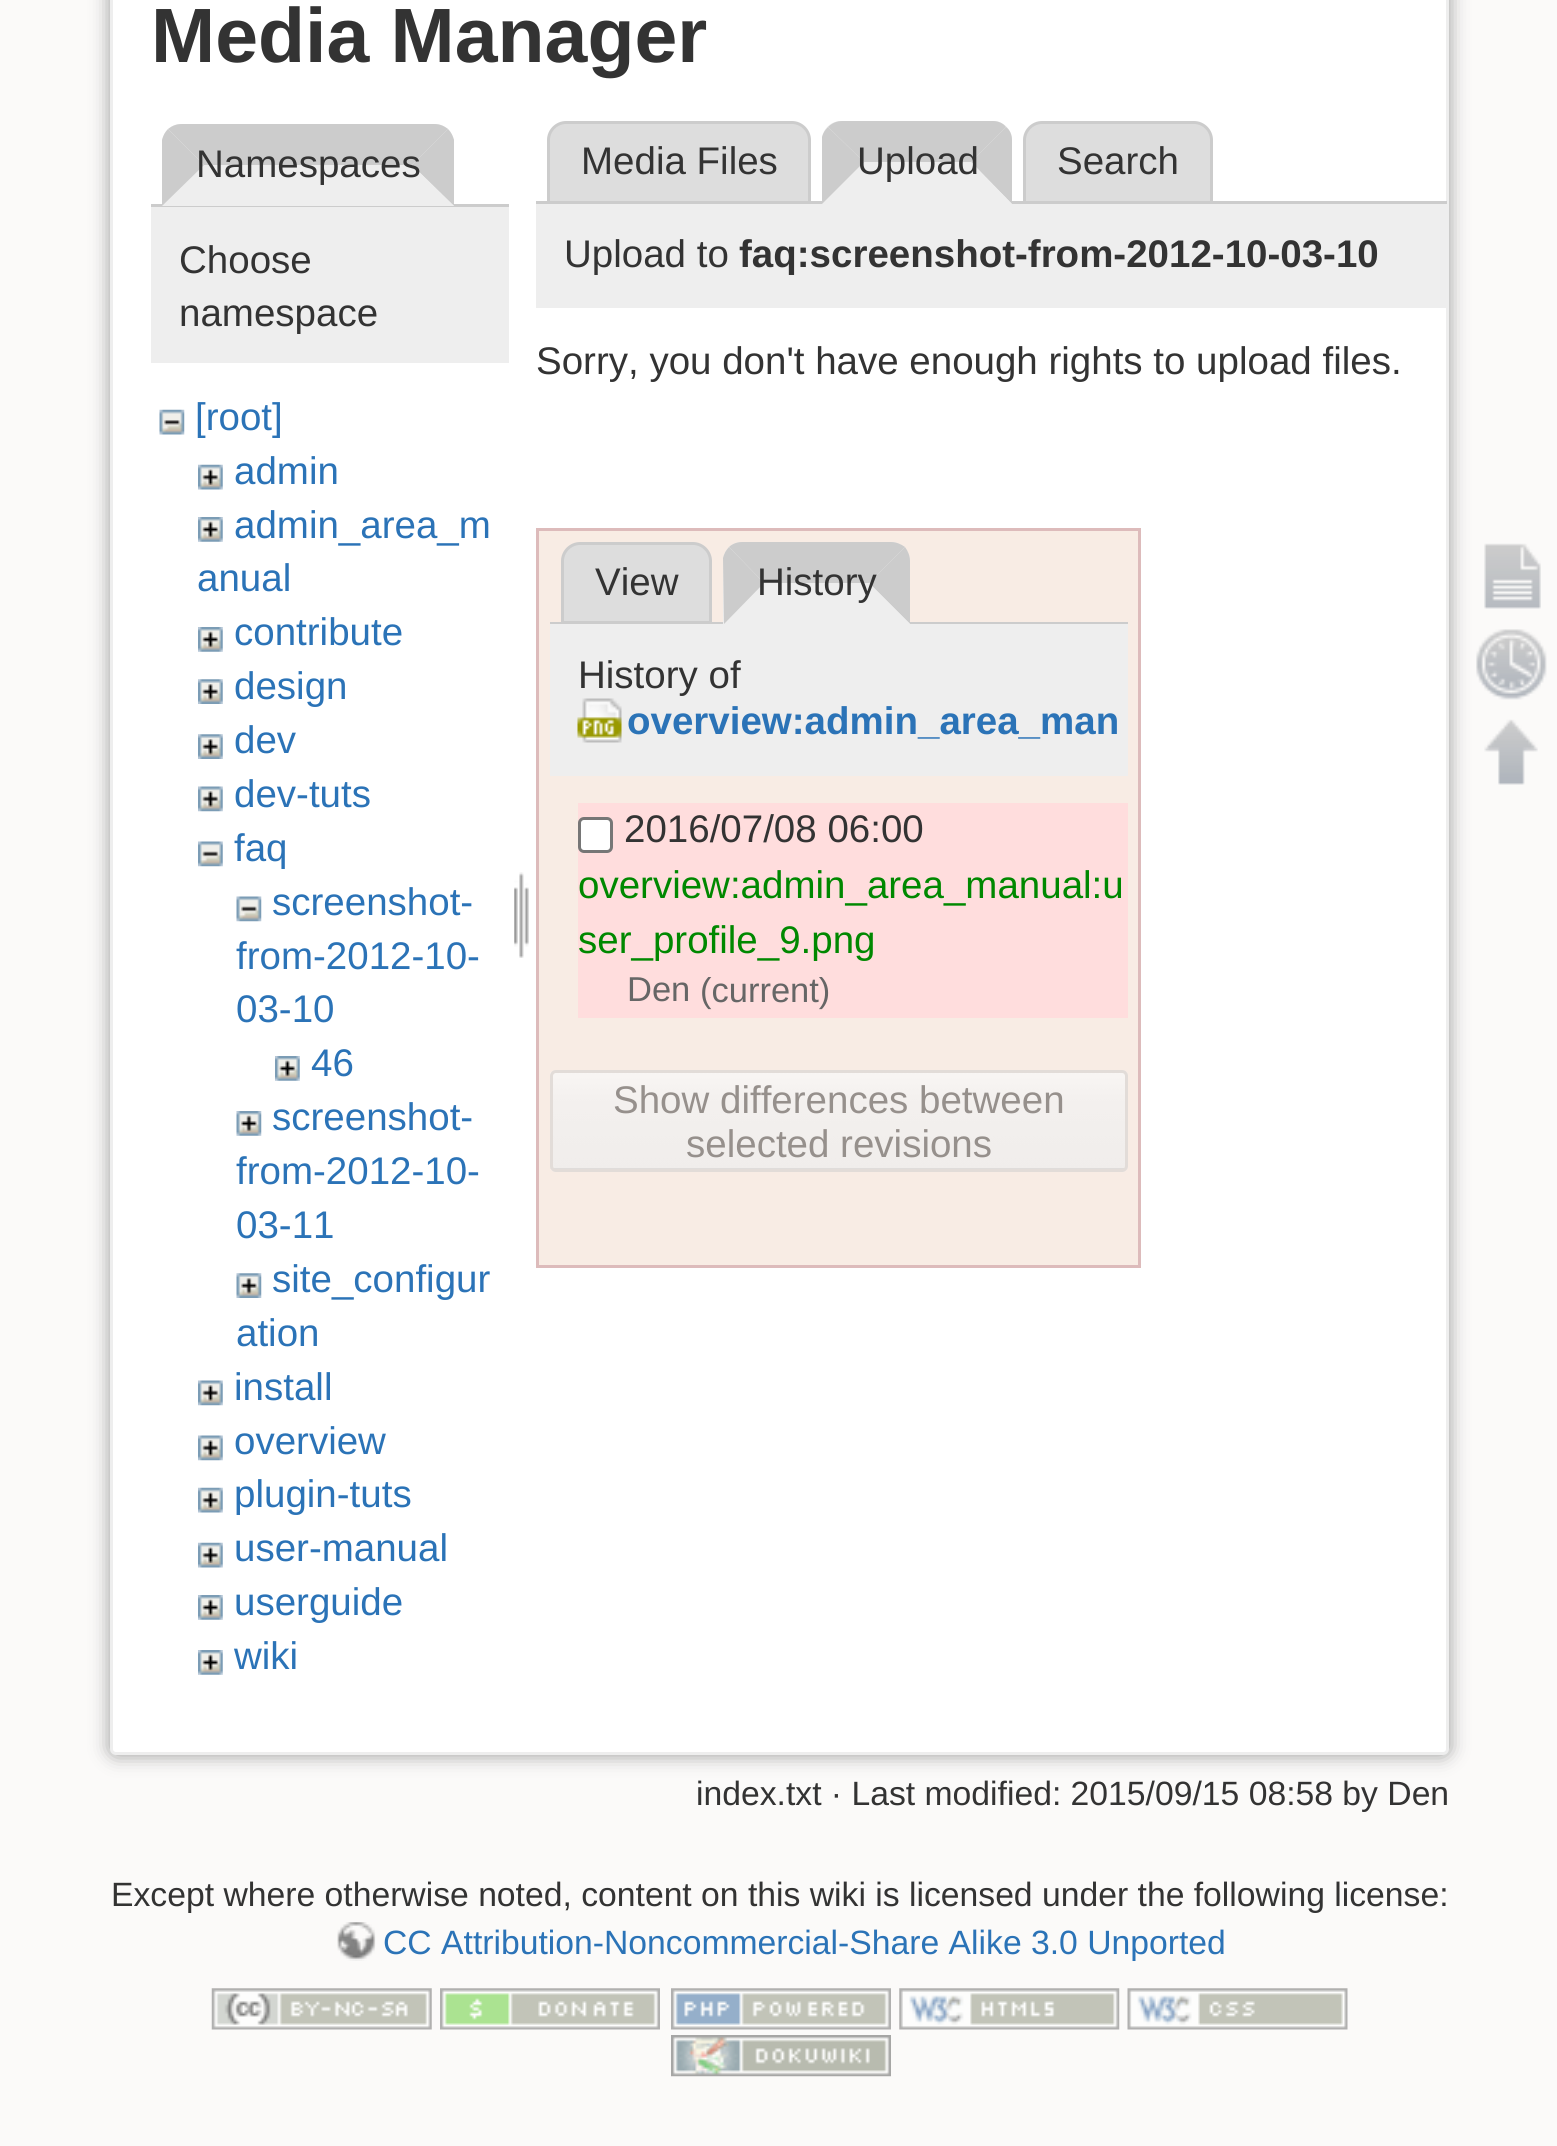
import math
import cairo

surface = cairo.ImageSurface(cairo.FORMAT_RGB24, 1557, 2146)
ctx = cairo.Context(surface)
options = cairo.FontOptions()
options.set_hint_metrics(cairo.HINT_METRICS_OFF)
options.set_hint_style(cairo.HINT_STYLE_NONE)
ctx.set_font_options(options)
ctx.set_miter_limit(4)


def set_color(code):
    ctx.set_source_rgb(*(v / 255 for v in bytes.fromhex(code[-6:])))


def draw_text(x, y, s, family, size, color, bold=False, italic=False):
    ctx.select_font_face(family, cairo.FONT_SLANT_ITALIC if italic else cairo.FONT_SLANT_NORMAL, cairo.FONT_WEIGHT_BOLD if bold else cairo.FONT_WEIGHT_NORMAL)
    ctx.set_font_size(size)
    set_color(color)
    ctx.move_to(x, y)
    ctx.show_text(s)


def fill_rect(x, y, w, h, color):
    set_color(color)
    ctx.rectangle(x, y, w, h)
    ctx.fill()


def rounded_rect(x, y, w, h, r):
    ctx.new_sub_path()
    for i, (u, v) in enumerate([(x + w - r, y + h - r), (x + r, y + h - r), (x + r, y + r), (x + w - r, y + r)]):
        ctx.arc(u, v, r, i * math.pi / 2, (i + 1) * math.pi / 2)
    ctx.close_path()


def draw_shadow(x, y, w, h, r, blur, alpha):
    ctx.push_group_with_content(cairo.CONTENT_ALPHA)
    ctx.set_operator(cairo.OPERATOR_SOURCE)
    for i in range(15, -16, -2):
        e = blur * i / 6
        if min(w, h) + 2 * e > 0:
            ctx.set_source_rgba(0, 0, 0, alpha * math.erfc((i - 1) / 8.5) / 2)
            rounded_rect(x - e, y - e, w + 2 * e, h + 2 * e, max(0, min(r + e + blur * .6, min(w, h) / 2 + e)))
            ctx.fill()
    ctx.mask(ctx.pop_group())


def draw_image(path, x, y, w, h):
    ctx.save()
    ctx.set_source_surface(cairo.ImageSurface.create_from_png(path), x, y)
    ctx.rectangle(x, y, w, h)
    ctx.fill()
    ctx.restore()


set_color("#fbfaf9")
ctx.paint()
set_color("#999999")
draw_shadow(110, -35, 1339, 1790, 6, 9.5, 1)
set_color("#ffffff")
rounded_rect(111.5, -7.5, 1336, 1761, 4.5)
ctx.fill_preserve()
set_color("#eeeeee")
ctx.set_line_width(3)
ctx.stroke()
draw_text(151, 62, "Media Manager", "Liberation Sans", 77, "#333333", bold=True)
fill_rect(151, 204, 358, 3, "#cccccc")
set_color("#eeeeee")
ctx.new_path()
ctx.move_to(181, 124)
ctx.line_to(435, 124)
ctx.curve_to(445.5, 124, 454, 132.5, 454, 143)
ctx.line_to(454, 206)
ctx.line_to(162, 206)
ctx.line_to(162, 143)
ctx.curve_to(162, 132.5, 170.5, 124, 181, 124)
ctx.close_path()
ctx.fill()
set_color("#cccccc")
ctx.new_path()
ctx.move_to(182, 124)
ctx.curve_to(176, 124, 172, 126, 168, 129)
ctx.line_to(204, 165)
ctx.line_to(412, 165)
ctx.line_to(448, 129)
ctx.curve_to(444, 126, 440, 124, 434, 124)
ctx.close_path()
ctx.fill()
ctx.new_path()
ctx.move_to(454, 206)
ctx.line_to(412, 165)
ctx.line_to(448, 129)
ctx.curve_to(451, 132, 453, 136, 454, 140)
ctx.close_path()
ctx.fill()
set_color("#eeeeee")
ctx.new_path()
ctx.move_to(454, 206)
ctx.line_to(412, 165)
ctx.line_to(204, 165)
ctx.line_to(162, 206)
ctx.close_path()
ctx.fill()
set_color("#cccccc")
ctx.new_path()
ctx.move_to(162, 140)
ctx.curve_to(163, 136, 165, 132, 168, 129)
ctx.line_to(204, 165)
ctx.line_to(162, 206)
ctx.close_path()
ctx.fill()
draw_text(196, 177, "Namespaces", "Liberation Sans", 38.5, "#333333")
fill_rect(151, 207, 358, 156, "#eeeeee")
draw_text(179, 273, "Choose", "Liberation Sans", 38.5, "#333333")
draw_text(179, 326, "namespace", "Liberation Sans", 38.5, "#333333")
draw_image("assets/img1.png", 159, 409, 26, 26)
draw_text(195, 430, "[root]", "Liberation Sans", 38.5, "#2b73b7")
draw_image("assets/img2.png", 198, 464, 25, 26)
draw_text(234, 484, "admin", "Liberation Sans", 38.5, "#2b73b7")
draw_image("assets/img3.png", 198, 517, 25, 25)
draw_text(234, 538, "admin_area_m", "Liberation Sans", 38.5, "#2b73b7")
draw_text(197, 591, "anual", "Liberation Sans", 38.5, "#2b73b7")
draw_image("assets/img3.png", 198, 627, 25, 25)
draw_text(234, 645, "contribute", "Liberation Sans", 38.5, "#2b73b7")
draw_image("assets/img4.png", 198, 679, 25, 25)
draw_text(234, 699, "design", "Liberation Sans", 38.5, "#2b73b7")
draw_image("assets/img4.png", 198, 734, 25, 25)
draw_text(234, 753, "dev", "Liberation Sans", 38.5, "#2b73b7")
draw_image("assets/img5.png", 198, 786, 25, 26)
draw_text(234, 807, "dev-tuts", "Liberation Sans", 38.5, "#2b73b7")
draw_image("assets/img6.png", 198, 841, 25, 26)
draw_text(234, 861, "faq", "Liberation Sans", 38.5, "#2b73b7")
draw_image("assets/img7.png", 236, 896, 26, 26)
draw_text(272, 915, "screenshot-", "Liberation Sans", 38.5, "#2b73b7")
draw_text(236, 969, "from-2012-10-", "Liberation Sans", 38.5, "#2b73b7")
draw_text(236, 1022, "03-10", "Liberation Sans", 38.5, "#2b73b7")
draw_image("assets/img8.png", 275, 1056, 25, 25)
draw_text(311, 1076, "46", "Liberation Sans", 38.5, "#2b73b7")
draw_image("assets/img9.png", 236, 1111, 26, 25)
draw_text(272, 1130, "screenshot-", "Liberation Sans", 38.5, "#2b73b7")
draw_text(236, 1184, "from-2012-10-", "Liberation Sans", 38.5, "#2b73b7")
draw_text(236, 1238, "03-11", "Liberation Sans", 38.5, "#2b73b7")
draw_image("assets/img10.png", 236, 1273, 26, 25)
draw_text(272, 1292, "site_configur", "Liberation Sans", 38.5, "#2b73b7")
draw_text(236, 1346, "ation", "Liberation Sans", 38.5, "#2b73b7")
draw_image("assets/img5.png", 198, 1380, 25, 26)
draw_text(234, 1400, "install", "Liberation Sans", 38.5, "#2b73b7")
draw_image("assets/img5.png", 198, 1435, 25, 26)
draw_text(234, 1454, "overview", "Liberation Sans", 38.5, "#2b73b7")
draw_image("assets/img2.png", 198, 1487, 25, 26)
draw_text(234, 1507, "plugin-tuts", "Liberation Sans", 38.5, "#2b73b7")
draw_image("assets/img2.png", 198, 1542, 25, 26)
draw_text(234, 1561, "user-manual", "Liberation Sans", 38.5, "#2b73b7")
draw_image("assets/img3.png", 198, 1595, 25, 25)
draw_text(234, 1615, "userguide", "Liberation Sans", 38.5, "#2b73b7")
draw_image("assets/img3.png", 198, 1650, 25, 25)
draw_text(234, 1669, "wiki", "Liberation Sans", 38.5, "#2b73b7")
draw_image("assets/img11.png", 514, 872, 15, 86)
set_color("#dddddd")
ctx.new_path()
ctx.move_to(566, 122.5)
ctx.line_to(792, 122.5)
ctx.curve_to(801.5, 122.5, 809.5, 130.5, 809.5, 140)
ctx.line_to(809.5, 202.5)
ctx.line_to(548.5, 202.5)
ctx.line_to(548.5, 140)
ctx.curve_to(548.5, 130.5, 556.5, 122.5, 566, 122.5)
ctx.close_path()
ctx.fill_preserve()
set_color("#cccccc")
ctx.stroke()
draw_text(581, 174, "Media Files", "Liberation Sans", 38.5, "#333333")
set_color("#dddddd")
ctx.new_path()
ctx.move_to(1042, 122.5)
ctx.line_to(1194, 122.5)
ctx.curve_to(1203.5, 122.5, 1211.5, 130.5, 1211.5, 140)
ctx.line_to(1211.5, 202.5)
ctx.line_to(1024.5, 202.5)
ctx.line_to(1024.5, 140)
ctx.curve_to(1024.5, 130.5, 1032.5, 122.5, 1042, 122.5)
ctx.close_path()
ctx.fill_preserve()
set_color("#cccccc")
ctx.stroke()
fill_rect(536, 201, 911, 3, "#cccccc")
set_color("#eeeeee")
ctx.new_path()
ctx.move_to(841, 121)
ctx.line_to(993, 121)
ctx.curve_to(1003.5, 121, 1012, 129.5, 1012, 140)
ctx.line_to(1012, 204)
ctx.line_to(822, 204)
ctx.line_to(822, 140)
ctx.curve_to(822, 129.5, 830.5, 121, 841, 121)
ctx.close_path()
ctx.fill()
set_color("#cccccc")
ctx.new_path()
ctx.move_to(842, 121)
ctx.line_to(993, 121)
ctx.curve_to(998, 121, 1003, 123, 1006, 127)
ctx.line_to(971, 162)
ctx.line_to(864, 162)
ctx.line_to(828, 127)
ctx.curve_to(832, 123, 837, 121, 842, 121)
ctx.close_path()
ctx.fill()
ctx.new_path()
ctx.move_to(1006, 127)
ctx.line_to(971, 162)
ctx.line_to(1012, 204)
ctx.line_to(1012, 140)
ctx.curve_to(1012, 135, 1010, 130, 1006, 127)
ctx.close_path()
ctx.fill()
set_color("#eeeeee")
ctx.new_path()
ctx.move_to(1012, 204)
ctx.line_to(971, 162)
ctx.line_to(864, 162)
ctx.line_to(822, 204)
ctx.close_path()
ctx.fill()
set_color("#cccccc")
ctx.new_path()
ctx.move_to(822, 204)
ctx.line_to(864, 162)
ctx.line_to(828, 127)
ctx.curve_to(825, 130, 823, 133, 822, 137)
ctx.close_path()
ctx.fill()
draw_text(857, 174, "Upload", "Liberation Sans", 38.5, "#333333")
draw_text(1057, 174, "Search", "Liberation Sans", 38.5, "#333333")
fill_rect(536, 204, 910, 104, "#eeeeee")
draw_text(564, 267, "Upload to", "Liberation Sans", 38.5, "#333333")
draw_text(739, 267, "faq:screenshot-from-2012-10-03-10", "Liberation Sans", 38.5, "#333333", bold=True)
draw_text(536, 374, "Sorry, you don't have enough rights to upload files.", "Liberation Sans", 38.5, "#333333")
set_color("#f8ece4")
ctx.rectangle(537.5, 529.5, 602, 737)
ctx.fill_preserve()
set_color("#ddbbbb")
ctx.stroke()
set_color("#dddddd")
ctx.new_path()
ctx.move_to(580, 543.5)
ctx.line_to(693, 543.5)
ctx.curve_to(702.5, 543.5, 710.5, 551.5, 710.5, 561)
ctx.line_to(710.5, 622.5)
ctx.line_to(562.5, 622.5)
ctx.line_to(562.5, 561)
ctx.curve_to(562.5, 551.5, 570.5, 543.5, 580, 543.5)
ctx.close_path()
ctx.fill_preserve()
set_color("#cccccc")
ctx.stroke()
draw_text(595, 595, "View", "Liberation Sans", 38.5, "#333333")
fill_rect(550, 622, 578, 2, "#cccccc")
set_color("#eeeeee")
ctx.new_path()
ctx.move_to(742, 542)
ctx.line_to(891, 542)
ctx.curve_to(901.5, 542, 910, 550.5, 910, 561)
ctx.line_to(910, 624)
ctx.line_to(723, 624)
ctx.line_to(723, 561)
ctx.curve_to(723, 550.5, 731.5, 542, 742, 542)
ctx.close_path()
ctx.fill()
set_color("#cccccc")
ctx.new_path()
ctx.move_to(742, 542)
ctx.curve_to(737, 542, 732, 544, 729, 547)
ctx.line_to(764, 583)
ctx.line_to(869, 583)
ctx.line_to(905, 547)
ctx.curve_to(901, 544, 896, 542, 891, 542)
ctx.close_path()
ctx.fill()
ctx.new_path()
ctx.move_to(910, 624)
ctx.line_to(910, 561)
ctx.curve_to(910, 556, 908, 551, 905, 547)
ctx.line_to(869, 583)
ctx.close_path()
ctx.fill()
set_color("#eeeeee")
ctx.new_path()
ctx.move_to(910, 624)
ctx.line_to(869, 583)
ctx.line_to(764, 583)
ctx.line_to(724, 624)
ctx.close_path()
ctx.fill()
set_color("#cccccc")
ctx.new_path()
ctx.move_to(723, 558)
ctx.curve_to(724, 554, 726, 550, 729, 547)
ctx.line_to(764, 583)
ctx.line_to(724, 624)
ctx.close_path()
ctx.fill()
draw_text(757, 595, "History", "Liberation Sans", 38.5, "#333333")
fill_rect(550, 624, 578, 152, "#eeeeee")
draw_text(578, 688, "History of", "Liberation Sans", 38.5, "#333333")
draw_image("assets/img12.png", 577, 698, 45, 45)
draw_text(627, 734, "overview:admin_area_man", "Liberation Sans", 38.5, "#2b73b7", bold=True)
fill_rect(578, 803, 550, 215, "#ffdddd")
set_color("#ffffff")
rounded_rect(579.5, 818.5, 32, 33, 4.5)
ctx.fill_preserve()
set_color("#767676")
ctx.stroke()
draw_text(624, 842, "2016/07/08 06:00", "Liberation Sans", 38.5, "#333333")
draw_text(578, 898, "overview:admin_area_manual:u", "Liberation Sans", 38.5, "#008800")
draw_text(578, 953, "ser_profile_9.png", "Liberation Sans", 38.5, "#008800")
draw_text(627, 1001, "Den", "Liberation Sans", 34.5, "#666666")
draw_text(700, 1002, "(current)", "Liberation Sans", 34.5, "#666666")
set_color("#f3ede9")
rounded_rect(550, 1070, 578, 102, 6)
ctx.fill()
draw_image("assets/img13.png", 550, 1072, 577, 99)
rounded_rect(551.5, 1071.5, 575, 99, 4.5)
set_color("#e2dcd8")
ctx.stroke()
draw_text(613, 1113, "Show differences between", "Liberation Sans", 38.5, "#96908c")
draw_text(686, 1157, "selected revisions", "Liberation Sans", 38.5, "#96908c")
draw_text(696, 1805, "index.txt · Last modified: 2015/09/15 08:58 by Den", "Liberation Sans", 33.7, "#333333")
draw_image("assets/img14.png", 1484, 543, 57, 66)
draw_image("assets/img15.png", 1476, 629, 71, 71)
draw_image("assets/img16.png", 1484, 719, 54, 66)
draw_text(111, 1906, "Except where otherwise noted, content on this wiki is licensed under the following license:", "Liberation Sans", 33.7, "#333333")
draw_image("assets/img17.png", 337, 1922, 39, 39)
draw_text(383, 1954, "CC Attribution-Noncommercial-Share Alike 3.0 Unported", "Liberation Sans", 33.7, "#2b73b7")
draw_image("assets/img18.png", 211, 1988, 221, 42)
draw_image("assets/img19.png", 440, 1988, 220, 42)
draw_image("assets/img20.png", 671, 1988, 220, 42)
draw_image("assets/img21.png", 899, 1988, 221, 42)
draw_image("assets/img22.png", 1127, 1988, 221, 42)
draw_image("assets/img23.png", 671, 2035, 220, 42)
surface.write_to_png("output.png")
